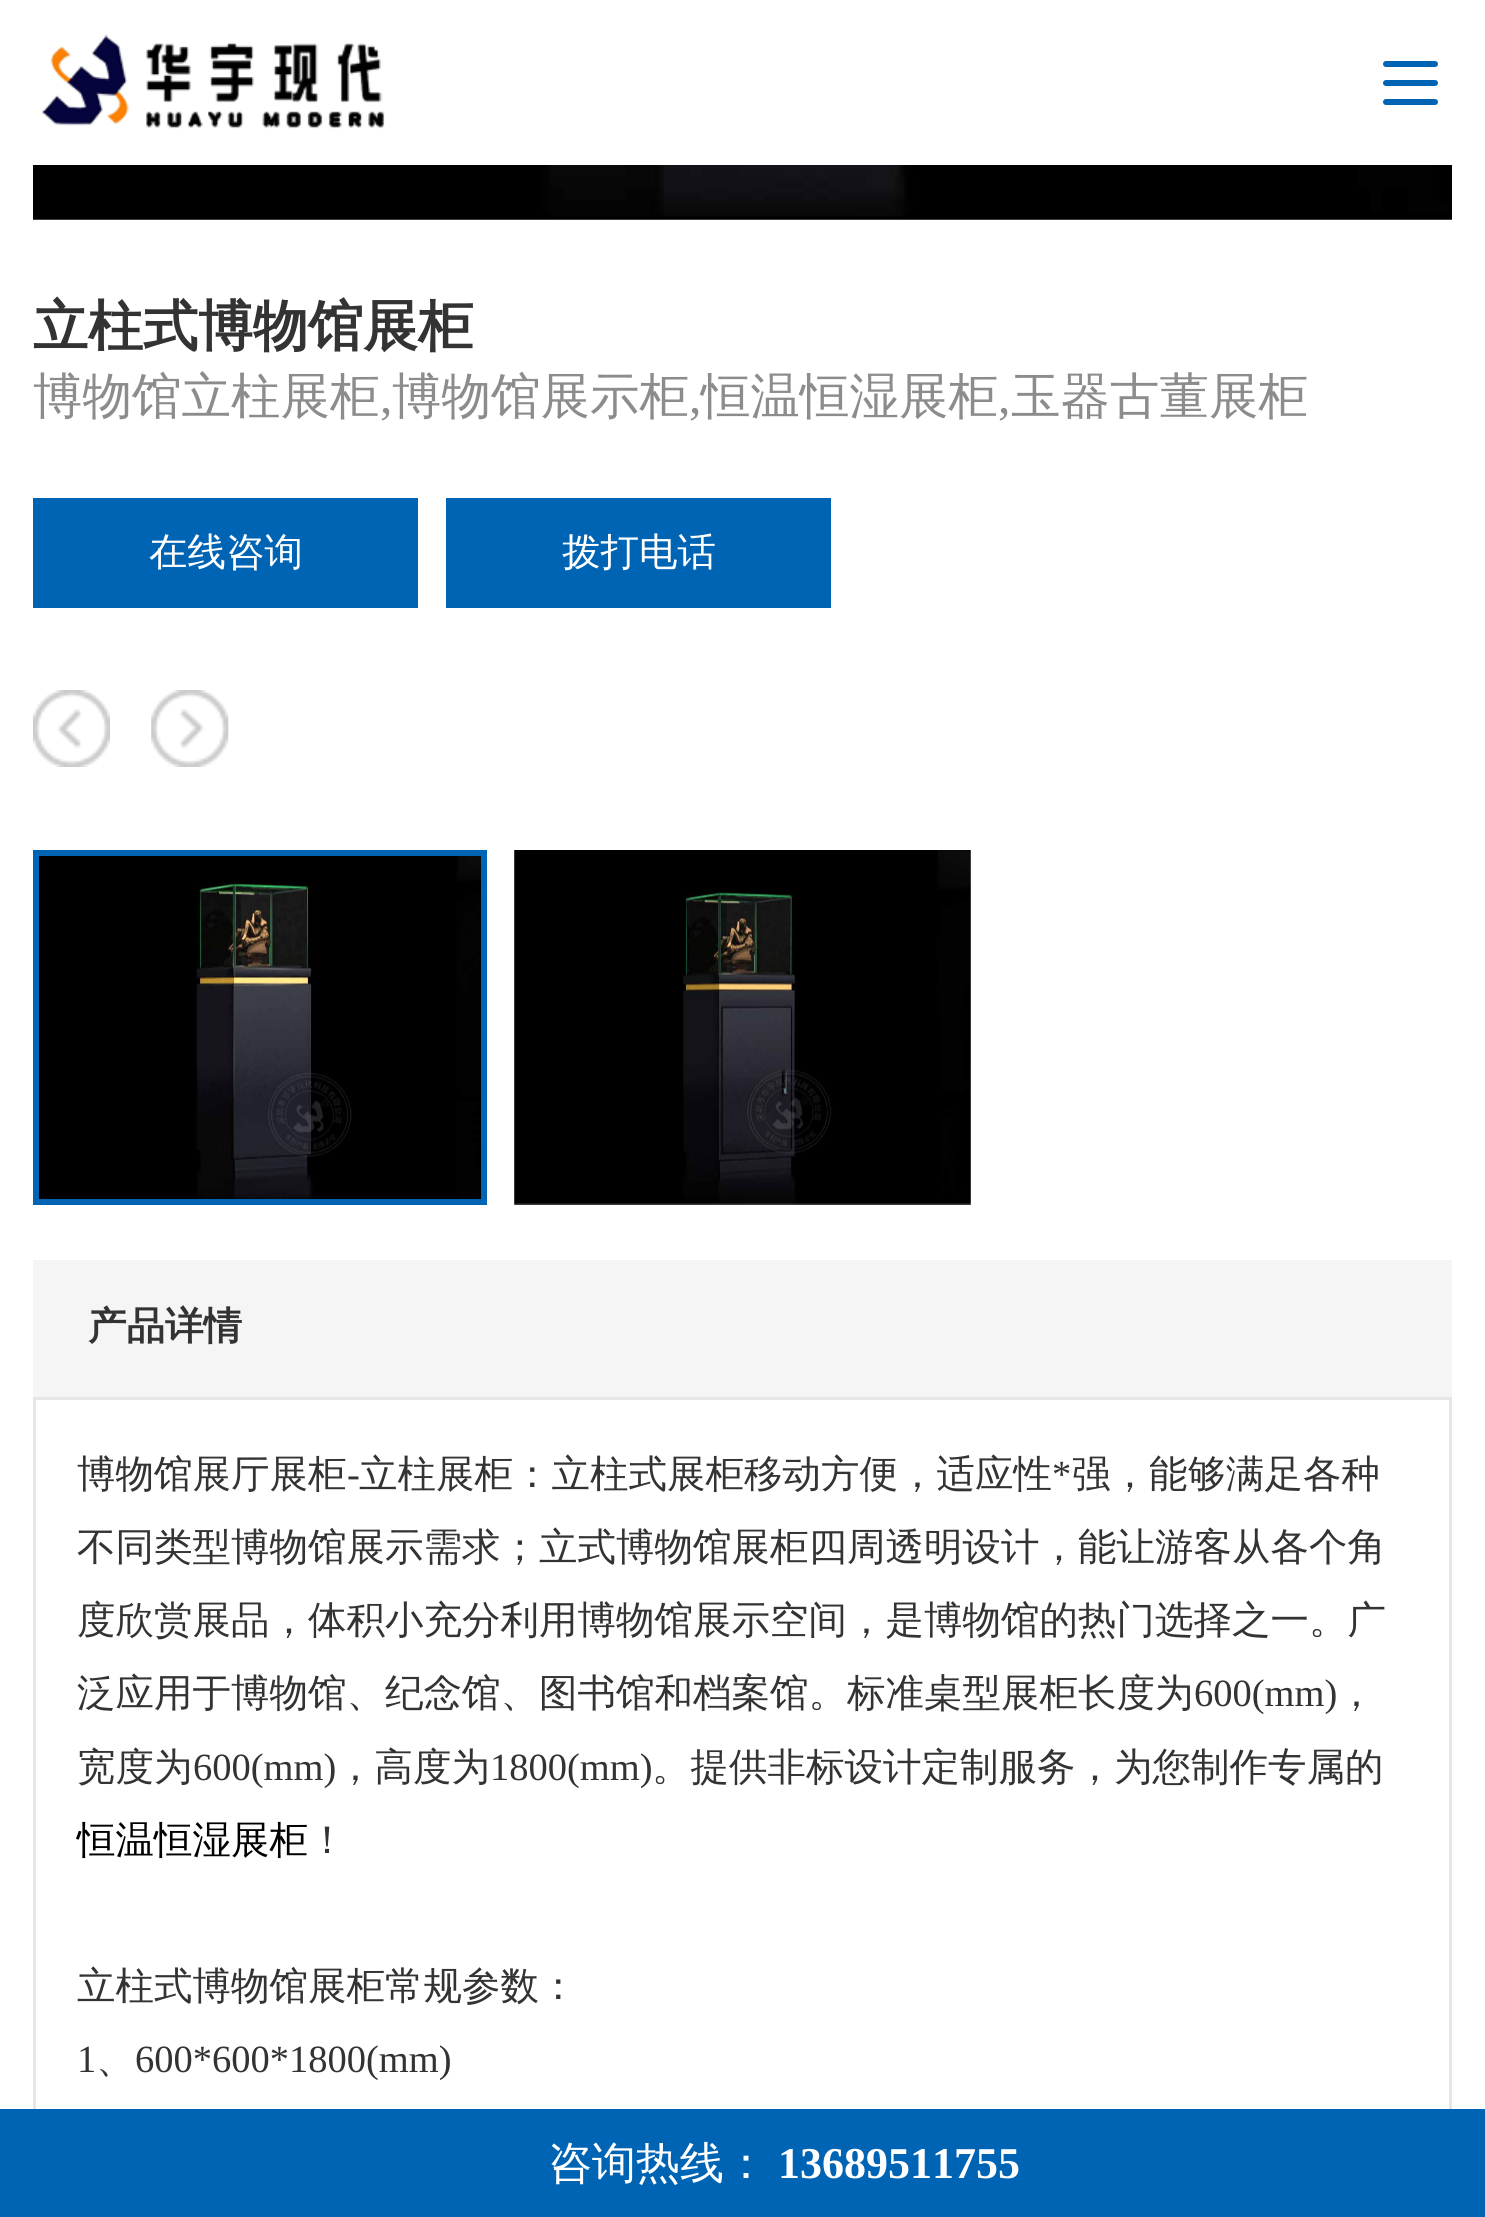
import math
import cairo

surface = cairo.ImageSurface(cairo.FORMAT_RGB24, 1485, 2217)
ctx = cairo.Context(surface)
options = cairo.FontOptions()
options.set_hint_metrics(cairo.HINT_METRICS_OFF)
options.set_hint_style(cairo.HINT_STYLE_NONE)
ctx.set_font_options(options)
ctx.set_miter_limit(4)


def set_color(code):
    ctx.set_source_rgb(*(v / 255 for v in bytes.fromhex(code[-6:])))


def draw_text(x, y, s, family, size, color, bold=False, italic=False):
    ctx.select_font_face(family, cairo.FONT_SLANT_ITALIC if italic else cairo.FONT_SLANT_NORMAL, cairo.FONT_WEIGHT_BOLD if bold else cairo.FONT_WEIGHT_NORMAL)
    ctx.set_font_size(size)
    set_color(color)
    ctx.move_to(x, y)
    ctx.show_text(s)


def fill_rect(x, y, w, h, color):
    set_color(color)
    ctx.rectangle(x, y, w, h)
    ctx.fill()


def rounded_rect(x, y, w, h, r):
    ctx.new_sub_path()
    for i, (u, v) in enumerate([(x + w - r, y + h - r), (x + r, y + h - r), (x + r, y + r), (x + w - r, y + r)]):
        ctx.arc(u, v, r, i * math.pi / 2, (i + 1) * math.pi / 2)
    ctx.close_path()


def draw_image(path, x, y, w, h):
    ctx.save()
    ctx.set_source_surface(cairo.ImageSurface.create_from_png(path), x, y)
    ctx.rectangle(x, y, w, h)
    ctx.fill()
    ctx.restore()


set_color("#ffffff")
ctx.paint()
draw_image("assets/img1.png", 41, 34, 344, 95)
set_color("#0064b5")
rounded_rect(1383, 61, 55, 6, 3)
ctx.fill()
rounded_rect(1383, 80, 55, 6, 3)
ctx.fill()
rounded_rect(1383, 99, 55, 6, 3)
ctx.fill()
draw_image("assets/img2.png", 33, 165, 1419, 55)
draw_text(33, 345, "立柱式博物馆展柜", "WenQuanYi Zen Hei", 55, "#333333", bold=True)
draw_text(33, 413, "博物馆立柱展柜", "WenQuanYi Zen Hei Medium", 49.5, "#8c8c8c")
draw_text(380, 413, ",", "Liberation Serif", 49.5, "#8c8c8c")
draw_text(392, 413, "博物馆展示柜", "WenQuanYi Zen Hei Medium", 49.5, "#8c8c8c")
draw_text(689, 413, ",", "Liberation Serif", 49.5, "#8c8c8c")
draw_text(701, 413, "恒温恒湿展柜", "WenQuanYi Zen Hei Medium", 49.5, "#8c8c8c")
draw_text(998, 413, ",", "Liberation Serif", 49.5, "#8c8c8c")
draw_text(1011, 413, "玉器古董展柜", "WenQuanYi Zen Hei Medium", 49.5, "#8c8c8c")
fill_rect(33, 498, 385, 110, "#0064b5")
draw_text(149, 565, "在线咨询", "WenQuanYi Zen Hei Medium", 38.5, "#ffffff")
fill_rect(446, 498, 385, 110, "#0064b5")
draw_text(562, 565, "拨打电话", "WenQuanYi Zen Hei Medium", 38.5, "#ffffff")
draw_image("assets/img3.png", 33, 690, 77, 77)
draw_image("assets/img4.png", 151, 690, 78, 77)
draw_image("assets/img5.png", 39, 856, 442, 343)
ctx.rectangle(36, 853, 448, 349)
set_color("#0064b5")
ctx.set_line_width(6)
ctx.stroke()
fill_rect(514, 850, 457, 355, "#e6e6e6")
draw_image("assets/img6.png", 514, 850, 457, 355)
fill_rect(33, 1260, 1419, 137, "#f5f5f5")
draw_text(88, 1339, "产品详情", "WenQuanYi Zen Hei", 38.5, "#333333", bold=True)
ctx.rectangle(34.5, 1398.5, 1416, 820)
set_color("#e6e6e6")
ctx.set_line_width(3)
ctx.stroke()
draw_text(77, 1487, "博物馆展厅展柜", "WenQuanYi Zen Hei Medium", 38.5, "#333333")
draw_text(359, 1487, "立柱展柜：立柱式展柜移动方便，适应性", "WenQuanYi Zen Hei Medium", 38.5, "#333333")
draw_text(1052, 1487, "*", "Liberation Serif", 38.5, "#333333")
draw_text(1072, 1487, "强，能够满足各种", "WenQuanYi Zen Hei Medium", 38.5, "#333333")
draw_text(347, 1487, "-", "Liberation Serif", 38.5, "#333333")
draw_text(77, 1560, "不同类型博物馆展示需求；立式博物馆展柜四周透明设计，能让游客从各个角", "WenQuanYi Zen Hei Medium", 38.5, "#333333")
draw_text(77, 1633, "度欣赏展品，体积小充分利用博物馆展示空间，是博物馆的热门选择之一。广", "WenQuanYi Zen Hei Medium", 38.5, "#333333")
draw_text(77, 1706, "泛应用于博物馆、纪念馆、图书馆和档案馆。标准桌型展柜长度为", "WenQuanYi Zen Hei Medium", 38.5, "#333333")
draw_text(1194, 1706, "600(mm)", "Liberation Serif", 38.5, "#333333")
draw_text(1337, 1706, "，", "WenQuanYi Zen Hei Medium", 38.5, "#333333")
draw_text(77, 1780, "宽度为", "WenQuanYi Zen Hei Medium", 38.5, "#333333")
draw_text(193, 1780, "600(mm)", "Liberation Serif", 38.5, "#333333")
draw_text(336, 1780, "，高度为", "WenQuanYi Zen Hei Medium", 38.5, "#333333")
draw_text(490, 1780, "1800(mm)", "Liberation Serif", 38.5, "#333333")
draw_text(652, 1780, "。提供非标设计定制服务，为您制作专属的", "WenQuanYi Zen Hei Medium", 38.5, "#333333")
draw_text(77, 1853, "恒温恒湿展柜", "WenQuanYi Zen Hei Medium", 38.5, "#000000")
draw_text(308, 1853, "！", "WenQuanYi Zen Hei Medium", 38.5, "#333333")
draw_text(77, 1999, "立柱式博物馆展柜常规参数：", "WenQuanYi Zen Hei Medium", 38.5, "#333333")
draw_text(77, 2072, "1", "Liberation Serif", 38.5, "#333333")
draw_text(96, 2072, "、", "WenQuanYi Zen Hei Medium", 38.5, "#333333")
draw_text(135, 2072, "600*600*1800(mm)", "Liberation Serif", 38.5, "#333333")
fill_rect(0, 2109, 1485, 108, "#0064b5")
draw_text(548, 2178, "咨询热线：", "WenQuanYi Zen Hei Medium", 44, "#ffffff")
draw_text(778, 2178, "13689511755", "Liberation Serif", 44, "#ffffff", bold=True)
surface.write_to_png("output.png")
